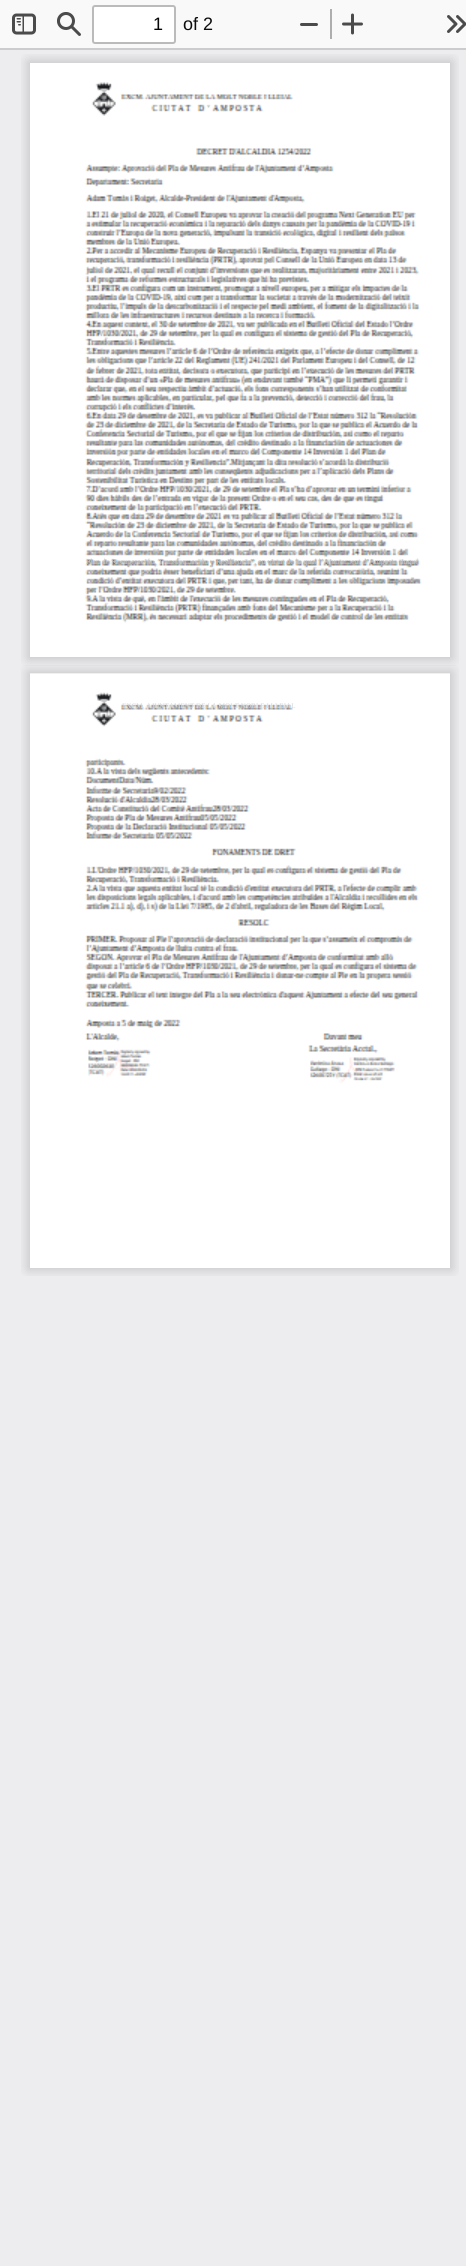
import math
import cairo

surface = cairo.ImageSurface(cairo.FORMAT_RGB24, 466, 2266)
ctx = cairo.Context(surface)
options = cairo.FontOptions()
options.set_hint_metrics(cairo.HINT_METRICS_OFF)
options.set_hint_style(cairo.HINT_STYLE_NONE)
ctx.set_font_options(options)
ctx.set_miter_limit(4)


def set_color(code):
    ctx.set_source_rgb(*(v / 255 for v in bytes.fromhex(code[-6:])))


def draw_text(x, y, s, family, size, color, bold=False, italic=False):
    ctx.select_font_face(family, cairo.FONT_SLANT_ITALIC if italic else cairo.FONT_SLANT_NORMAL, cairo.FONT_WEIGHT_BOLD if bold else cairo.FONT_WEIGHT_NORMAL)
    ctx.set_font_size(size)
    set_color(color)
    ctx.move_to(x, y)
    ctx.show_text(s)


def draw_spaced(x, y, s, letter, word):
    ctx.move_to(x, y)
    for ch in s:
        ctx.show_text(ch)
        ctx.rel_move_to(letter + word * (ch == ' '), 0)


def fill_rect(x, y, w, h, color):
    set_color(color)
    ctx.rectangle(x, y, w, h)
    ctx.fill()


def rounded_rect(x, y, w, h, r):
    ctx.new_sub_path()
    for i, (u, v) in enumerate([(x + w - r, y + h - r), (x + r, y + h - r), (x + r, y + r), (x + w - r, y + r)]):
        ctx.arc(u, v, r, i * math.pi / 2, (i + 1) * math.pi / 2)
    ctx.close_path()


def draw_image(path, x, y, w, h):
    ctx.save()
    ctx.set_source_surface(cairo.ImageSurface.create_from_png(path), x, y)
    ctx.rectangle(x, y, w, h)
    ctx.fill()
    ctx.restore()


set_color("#ededf0")
ctx.paint()
fill_rect(0, 48, 466, 2, "#cccccc")
fill_rect(0, 0, 466, 48, "#f9f9fa")
draw_image("assets/img1.png", 12, 13, 24, 22)
draw_image("assets/img2.png", 57, 12, 24, 24)
set_color("#ffffff")
rounded_rect(93, 6, 82, 37, 2)
ctx.fill_preserve()
set_color("#bbbbbc")
ctx.stroke()
draw_text(153, 30, "1", "Liberation Sans", 18, "#060606")
draw_text(183, 30, "of 2", "Liberation Sans", 18, "#0c0c0d")
set_color("#4b4b4b")
rounded_rect(300, 23, 18, 3, 1.5)
ctx.fill()
fill_rect(330, 9, 2, 30, "#aeaeaf")
draw_image("assets/img3.png", 342, 13, 21, 22)
draw_image("assets/img4.png", 447, 15, 19, 18)
fill_rect(30, 63, 420, 594, "#ffffff")
draw_image("assets/img5.png", 21, 54, 438, 612)
draw_image("assets/img6.png", 85, 82, 337, 541)
draw_text(208, 111, "'", "Liberation Serif", 7.75, "#b6b8bd")
draw_text(255, 171, "l", "Liberation Serif", 7.75, "#b1b0b0")
draw_text(302, 171, "’", "Liberation Serif", 7.75, "#b1b0b0")
draw_spaced(127, 184, ":", 0.03, 0)
draw_text(229, 200, "'", "Liberation Serif", 7.75, "#b6b5b6")
draw_text(302, 200, ",", "Liberation Serif", 7.75, "#b6b5b6")
set_color("#b1b0b0")
draw_spaced(118, 235, "’", 0.03, 0)
draw_text(178, 245, ".", "Liberation Serif", 7.75, "#b6b8bd")
draw_text(90, 254, ".", "Liberation Serif", 7.75, "#b6b8bd")
draw_text(188, 254, "r", "Liberation Serif", 7.75, "#b6b8bd")
draw_text(199, 254, "e", "Liberation Serif", 7.75, "#b6b8bd")
draw_text(352, 254, "e", "Liberation Serif", 7.75, "#b6b8bd")
draw_text(104, 263, "e", "Liberation Serif", 7.75, "#b6b8bd")
draw_text(269, 263, "e", "Liberation Serif", 7.75, "#b6b8bd")
draw_text(365, 263, "e", "Liberation Serif", 7.75, "#b6b8bd")
draw_text(307, 281, ".", "Liberation Serif", 7.75, "#b6b5b6")
draw_text(353, 299, "r", "Liberation Serif", 7.75, "#b6b8bd")
draw_spaced(173, 308, "s", 0.03, 0)
draw_text(392, 327, "’", "Liberation Serif", 7.75, "#b1b0b0")
draw_text(101, 336, "/", "Liberation Serif", 7.75, "#b1b0b0")
draw_text(119, 336, "/", "Liberation Serif", 7.75, "#b1b0b0")
draw_text(167, 354, "l’", "Liberation Serif", 7.75, "#b1b0b0")
draw_text(210, 354, "’", "Liberation Serif", 7.75, "#b1b0b0")
draw_text(323, 354, "’", "Liberation Serif", 7.75, "#b1b0b0")
draw_text(150, 363, "’", "Liberation Serif", 7.75, "#b1b0b0")
draw_text(261, 363, "/", "Liberation Serif", 7.75, "#b1b0b0")
draw_text(163, 372, "n", "Liberation Serif", 7.75, "#c1c1c1")
draw_text(203, 372, "r", "Liberation Serif", 7.75, "#c1c1c1")
draw_text(272, 372, "r", "Liberation Serif", 7.75, "#c1c1c1")
draw_text(310, 372, "x", "Liberation Serif", 7.75, "#c1c1c1")
draw_text(212, 400, ",", "Liberation Serif", 7.75, "#b6b5b6")
draw_text(310, 418, "’", "Liberation Serif", 7.75, "#b1b0b0")
draw_spaced(173, 427, ",", 0.03, 0)
draw_text(193, 436, ",", "Liberation Serif", 7.75, "#b1b0b0")
set_color("#b6b8bd")
draw_spaced(230, 446, "e", 0.03, 0)
draw_spaced(386, 446, "e", 0.03, 0)
draw_text(180, 455, "e", "Liberation Serif", 7.75, "#b6b8bd")
draw_text(257, 455, "l", "Liberation Serif", 7.75, "#b6b8bd")
draw_text(376, 464, "u", "Liberation Serif", 7.75, "#b6b8bd")
draw_text(320, 473, "’", "Liberation Serif", 7.75, "#b6b8bd")
draw_text(190, 482, "s", "Liberation Serif", 7.75, "#b6b8bd")
draw_text(284, 482, ".", "Liberation Serif", 7.75, "#b6b8bd")
draw_text(86, 491, "7", "Liberation Serif", 7.75, "#b6b8bd")
draw_text(294, 491, "’", "Liberation Serif", 7.75, "#b6b8bd")
set_color("#b6b5b6")
draw_spaced(214, 528, ",", 0.03, 0)
set_color("#c1c1c1")
draw_spaced(86, 564, "Plan de Recuperación, Transformación y Resiliencia”, en virtut de la qual l’Ajuntament d’Amposta tingué", 0.03, 0)
set_color("#b1b0b0")
draw_spaced(221, 574, "’", 0.03, 0)
draw_text(138, 592, "/", "Liberation Serif", 7.75, "#b1b0b0")
draw_text(144, 601, ",", "Liberation Serif", 7.75, "#b1b0b0")
draw_image("assets/img7.png", 21, 665, 438, 611)
draw_image("assets/img8.png", 30, 673, 420, 595)
ctx.set_font_size(7.1)
set_color("#d5d6d8")
draw_spaced(122, 708, "EXCM. AJUNTAMENT DE LA MOLT NOBLE I LLEIAL", 0.03, 0)
draw_text(208, 721, "'", "Liberation Serif", 7.75, "#b6b8bd")
draw_text(102, 792, "m", "Liberation Serif", 7.75, "#c1c1c1")
draw_text(124, 802, "'", "Liberation Serif", 7.75, "#b6b5b6")
draw_text(174, 838, "/", "Liberation Serif", 7.75, "#b6b5b6")
draw_text(90, 872, ".", "Liberation Serif", 7.75, "#b6b8bd")
draw_text(168, 872, ",", "Liberation Serif", 7.75, "#b6b8bd")
draw_text(200, 872, "s", "Liberation Serif", 7.75, "#b6b8bd")
draw_text(271, 872, "s", "Liberation Serif", 7.75, "#b6b8bd")
draw_text(217, 881, ".", "Liberation Serif", 7.75, "#b6b8bd")
draw_text(346, 890, "'", "Liberation Serif", 7.75, "#b6b8bd")
draw_text(90, 890, ".", "Liberation Serif", 7.75, "#b6b8bd")
draw_text(295, 890, "r", "Liberation Serif", 7.75, "#b6b8bd")
draw_spaced(114, 899, "s", 0.03, 0)
draw_text(194, 909, "/", "Liberation Serif", 7.75, "#b6b5b6")
draw_text(169, 942, "l’", "Liberation Serif", 7.75, "#b1b0b0")
draw_text(326, 942, "’", "Liberation Serif", 7.75, "#b1b0b0")
draw_text(116, 942, ".", "Liberation Serif", 7.75, "#b1b0b0")
draw_spaced(89, 951, "’", 0.03, 0)
draw_spaced(134, 951, "’", 0.03, 0)
draw_text(285, 960, "’", "Liberation Serif", 7.75, "#b1b0b0")
draw_spaced(122, 969, "’", 0.03, 0)
draw_spaced(163, 969, "’", 0.03, 0)
draw_spaced(200, 969, "/", 0.03, 0)
draw_spaced(218, 969, "/", 0.03, 0)
set_color("#c1c1c1")
draw_spaced(115, 987, "l", 0.03, 0)
draw_spaced(130, 987, ".", 0.03, 0)
set_color("#b1b0b0")
draw_spaced(117, 997, ".", 0.03, 0)
draw_text(126, 1006, ".", "Liberation Serif", 7.75, "#aaaaac")
surface.write_to_png("output.png")
